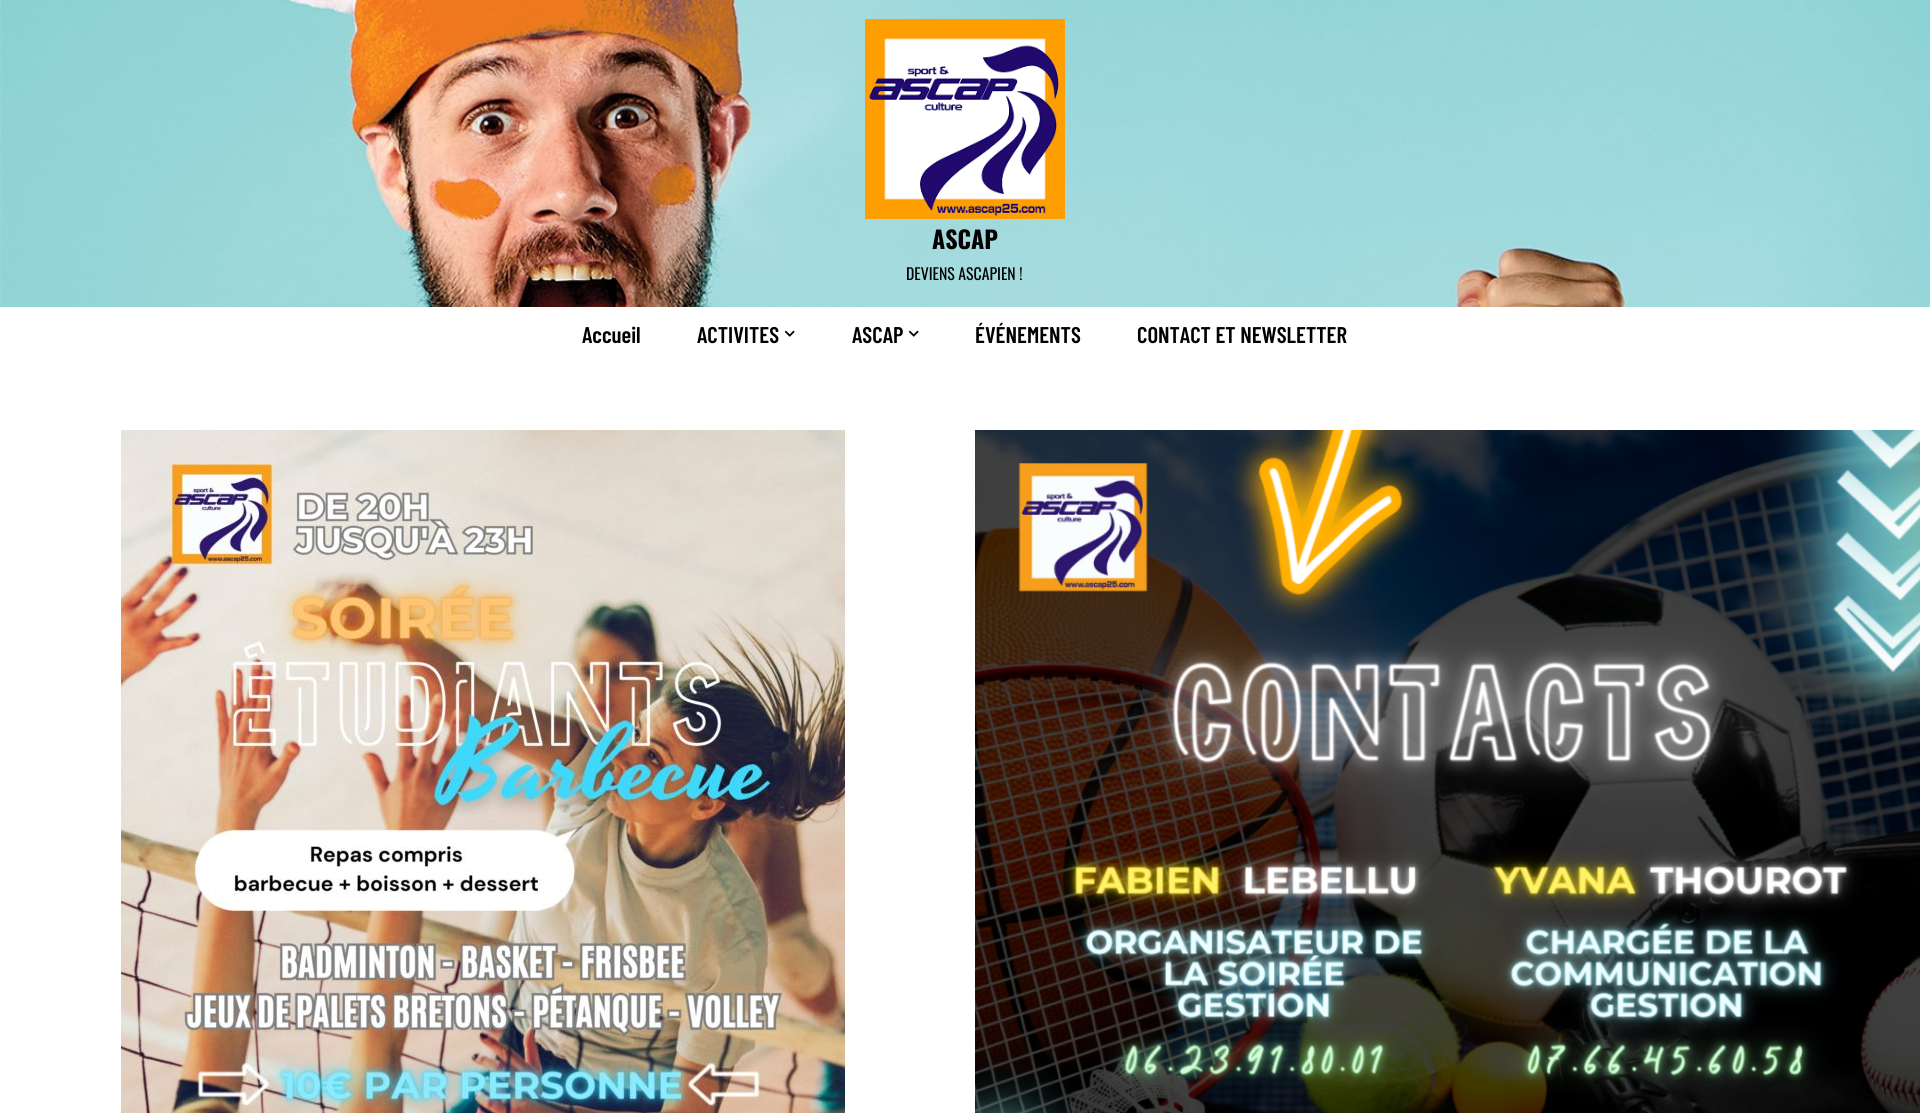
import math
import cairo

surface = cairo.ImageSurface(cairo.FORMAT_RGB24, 1930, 1113)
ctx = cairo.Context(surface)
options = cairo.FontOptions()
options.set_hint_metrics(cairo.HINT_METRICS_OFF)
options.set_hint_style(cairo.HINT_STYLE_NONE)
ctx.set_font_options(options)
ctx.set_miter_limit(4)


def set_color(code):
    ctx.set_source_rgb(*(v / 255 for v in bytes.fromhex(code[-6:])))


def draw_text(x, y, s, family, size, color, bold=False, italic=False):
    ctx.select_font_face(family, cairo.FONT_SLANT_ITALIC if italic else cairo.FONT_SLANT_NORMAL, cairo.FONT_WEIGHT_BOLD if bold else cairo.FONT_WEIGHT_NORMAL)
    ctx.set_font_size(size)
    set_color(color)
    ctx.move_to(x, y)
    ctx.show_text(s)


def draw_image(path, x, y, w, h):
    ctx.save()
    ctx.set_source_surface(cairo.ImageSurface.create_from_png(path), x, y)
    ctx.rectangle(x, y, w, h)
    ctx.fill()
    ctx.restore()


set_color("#ffffff")
ctx.paint()
draw_image("assets/img1.png", 0, 0, 1930, 307)
draw_image("assets/img2.png", 865, 19, 200, 200)
draw_text(932, 249, "ASCAP", "Oswald", 24, "#000000", bold=True)
draw_text(906, 280, "DEVIENS ASCAPIEN !", "Oswald", 15.75, "#000000")
draw_text(582, 343, "Accueil", "Barlow Condensed SemiBold", 22.75, "#000000")
draw_text(697, 343, "ACTIVITES", "Barlow Condensed SemiBold", 22.75, "#000000")
draw_image("assets/img3.png", 784, 330, 11, 7)
draw_text(852, 343, "ASCAP", "Barlow Condensed SemiBold", 22.75, "#000000")
draw_image("assets/img3.png", 908, 330, 11, 7)
draw_text(975, 343, "ÉVÉNEMENTS", "Barlow Condensed SemiBold", 22.75, "#000000")
draw_text(1137, 343, "CONTACT ET NEWSLETTER", "Barlow Condensed SemiBold", 22.75, "#000000")
draw_image("assets/img4.png", 121, 430, 724, 683)
draw_image("assets/img5.png", 975, 430, 945, 683)
surface.write_to_png("output.png")
